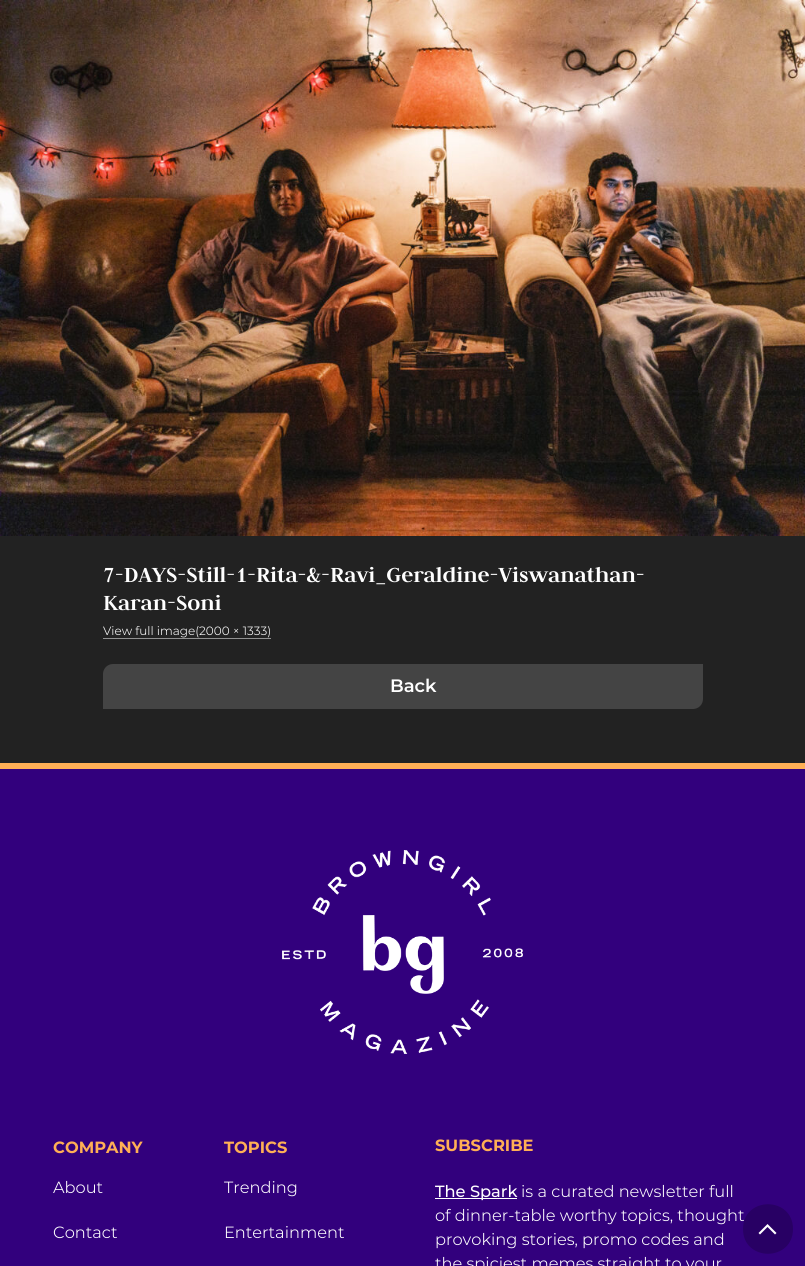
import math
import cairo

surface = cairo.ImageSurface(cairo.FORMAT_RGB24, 805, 1266)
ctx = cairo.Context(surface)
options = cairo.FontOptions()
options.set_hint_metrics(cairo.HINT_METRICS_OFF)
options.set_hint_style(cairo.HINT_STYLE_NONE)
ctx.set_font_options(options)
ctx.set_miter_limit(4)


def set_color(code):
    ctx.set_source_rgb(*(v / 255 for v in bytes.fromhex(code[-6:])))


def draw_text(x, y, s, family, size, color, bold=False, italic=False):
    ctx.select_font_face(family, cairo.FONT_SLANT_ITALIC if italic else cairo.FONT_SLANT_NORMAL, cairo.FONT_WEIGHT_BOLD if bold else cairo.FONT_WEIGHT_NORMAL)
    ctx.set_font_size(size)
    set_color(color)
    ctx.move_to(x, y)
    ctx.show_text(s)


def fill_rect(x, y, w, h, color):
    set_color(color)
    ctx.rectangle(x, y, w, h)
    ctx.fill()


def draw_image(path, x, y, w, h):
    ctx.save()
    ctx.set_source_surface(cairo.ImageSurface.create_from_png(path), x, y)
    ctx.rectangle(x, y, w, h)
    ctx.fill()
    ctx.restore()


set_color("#222222")
ctx.paint()
draw_image("assets/img1.png", 0, 0, 805, 536)
draw_text(103, 582, "7-DAYS-Still-1-Rita-&-Ravi_Geraldine-Viswanathan-", "Judson", 24, "#ffffff", bold=True)
draw_text(103, 610, "Karan-Soni", "Judson", 24, "#ffffff", bold=True)
draw_text(103, 635, "View full image(2000 × 1333)", "Montserrat Light", 12, "#ffffff")
fill_rect(103, 638, 168, 1, "#919191")
set_color("#444444")
ctx.new_path()
ctx.move_to(113, 664)
ctx.line_to(703, 664)
ctx.line_to(703, 699)
ctx.curve_to(703, 704.5, 698.5, 709, 693, 709)
ctx.line_to(103, 709)
ctx.line_to(103, 674)
ctx.curve_to(103, 668.5, 107.5, 664, 113, 664)
ctx.close_path()
ctx.fill()
draw_text(390, 692, "Back", "Montserrat SemiBold", 18, "#ffffff")
fill_rect(0, 769, 805, 497, "#32007d")
fill_rect(0, 763, 805, 6, "#ffaf55")
draw_image("assets/img2.png", 282, 850, 241, 204)
draw_text(53, 1153, "COMPANY", "Montserrat", 16.25, "#ffaf55", bold=True)
draw_text(53, 1193, "About", "Montserrat Light", 16.25, "#ffffff")
draw_text(53, 1238, "Contact", "Montserrat Light", 16.25, "#ffffff")
ctx.save()
ctx.rectangle(224, 1135, 147, 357)
ctx.clip()
draw_text(224, 1153, "TOPICS", "Montserrat", 16.25, "#ffaf55", bold=True)
ctx.restore()
draw_text(224, 1193, "Trending", "Montserrat Light", 16.25, "#ffffff")
draw_text(224, 1238, "Entertainment", "Montserrat Light", 16.25, "#ffffff")
draw_text(435, 1151, "SUBSCRIBE", "Montserrat", 16.25, "#ffaf55", bold=True)
fill_rect(435, 1198, 82, 1, "#ffffff")
draw_text(435, 1197, "The Spark", "Montserrat Medium", 16.25, "#ffffff")
draw_text(521, 1197, "is a curated newsletter full", "Montserrat Light", 16.25, "#ffffff")
draw_text(435, 1221, "of dinner-table worthy topics, thought", "Montserrat Light", 16.25, "#ffffff")
draw_text(435, 1245, "provoking stories, promo codes and", "Montserrat Light", 16.25, "#ffffff")
draw_text(435, 1269, "the spiciest memes straight to your", "Montserrat Light", 16.25, "#ffffff")
set_color("#280064")
ctx.new_path()
ctx.move_to(793, 1229)
ctx.curve_to(793, 1262, 743, 1262, 743, 1229)
ctx.curve_to(743, 1196, 793, 1196, 793, 1229)
ctx.close_path()
ctx.fill()
set_color("#ffffff")
ctx.new_path()
ctx.move_to(776.5, 1233)
ctx.line_to(775, 1234.5)
ctx.line_to(767.5, 1227)
ctx.line_to(760, 1234.5)
ctx.line_to(758.5, 1233)
ctx.line_to(767.5, 1224)
ctx.close_path()
ctx.fill()
surface.write_to_png("output.png")
